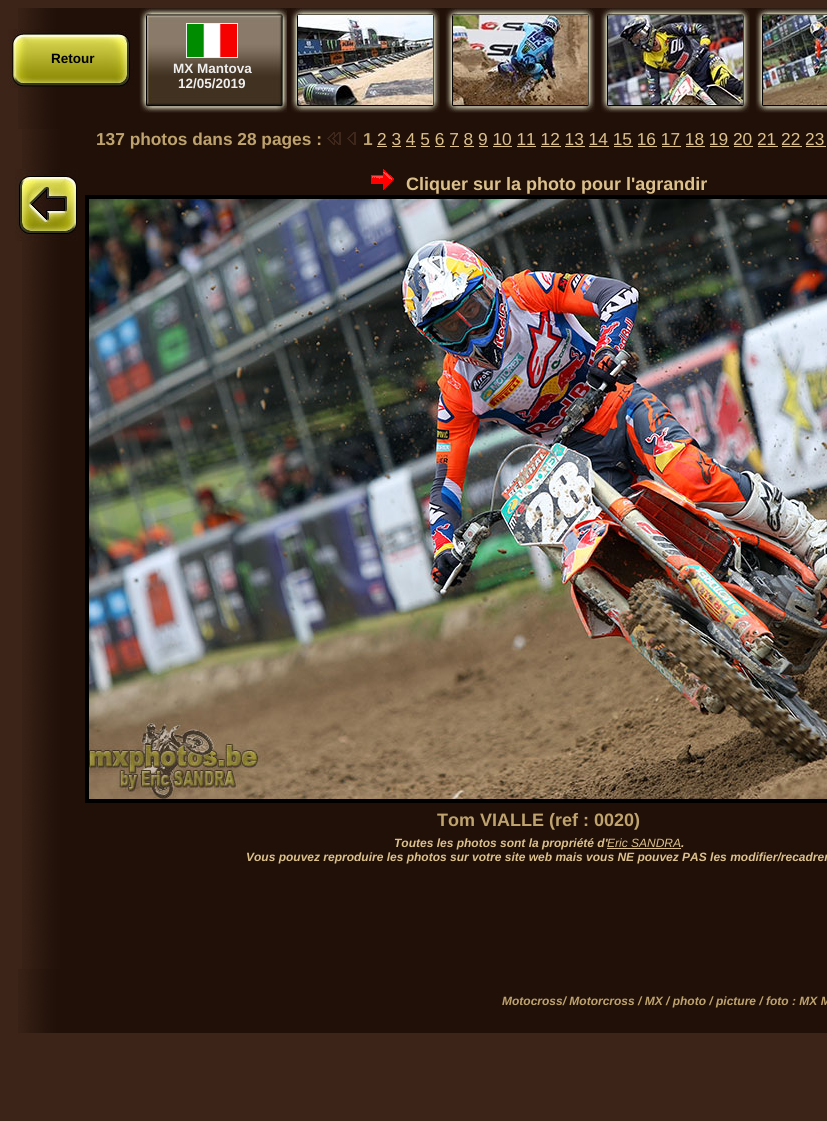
import math
import cairo

surface = cairo.ImageSurface(cairo.FORMAT_RGB24, 827, 1121)
ctx = cairo.Context(surface)
options = cairo.FontOptions()
options.set_hint_metrics(cairo.HINT_METRICS_OFF)
options.set_hint_style(cairo.HINT_STYLE_NONE)
ctx.set_font_options(options)
ctx.set_miter_limit(4)


def set_color(code):
    ctx.set_source_rgb(*(v / 255 for v in bytes.fromhex(code[-6:])))


def draw_text(x, y, s, family, size, color, bold=False, italic=False):
    ctx.select_font_face(family, cairo.FONT_SLANT_ITALIC if italic else cairo.FONT_SLANT_NORMAL, cairo.FONT_WEIGHT_BOLD if bold else cairo.FONT_WEIGHT_NORMAL)
    ctx.set_font_size(size)
    set_color(color)
    ctx.move_to(x, y)
    ctx.show_text(s)


def fill_rect(x, y, w, h, color):
    set_color(color)
    ctx.rectangle(x, y, w, h)
    ctx.fill()


def draw_image(path, x, y, w, h):
    ctx.save()
    ctx.set_source_surface(cairo.ImageSurface.create_from_png(path), x, y)
    ctx.rectangle(x, y, w, h)
    ctx.fill()
    ctx.restore()


set_color("#3c2418")
ctx.paint()
draw_image("assets/img1.png", 18, 8, 809, 121)
draw_image("assets/img2.png", 8, 29, 126, 59)
draw_text(51, 63, "Retour", "Liberation Sans", 13.5, "#000000", bold=True)
draw_image("assets/img3.png", 290, 8, 150, 105)
draw_image("assets/img4.png", 298, 15, 135, 90)
draw_image("assets/img3.png", 445, 8, 150, 105)
draw_image("assets/img5.png", 453, 15, 135, 90)
draw_image("assets/img3.png", 600, 8, 150, 105)
draw_image("assets/img6.png", 608, 15, 135, 90)
draw_image("assets/img7.png", 755, 8, 72, 105)
draw_image("assets/img8.png", 763, 15, 64, 90)
draw_image("assets/img9.png", 139, 8, 148, 105)
ctx.rectangle(186.5, 23.5, 51, 34)
set_color("#eeeeee")
ctx.set_line_width(1)
ctx.stroke()
draw_image("assets/img10.png", 187, 24, 50, 33)
draw_text(173, 73, "MX Mantova", "Liberation Sans", 13.5, "#eeeeee", bold=True)
draw_text(178, 88, "12/05/2019", "Liberation Sans", 13.5, "#eeeeee", bold=True)
draw_image("assets/img11.png", 22, 129, 805, 40)
draw_text(96, 145, "137 photos dans 28 pages :", "Liberation Sans", 17.3, "#bea36e", bold=True)
draw_image("assets/img12.png", 327, 132, 14, 13)
draw_image("assets/img13.png", 347, 132, 9, 13)
draw_text(363, 145, "1", "Liberation Sans", 17.3, "#bea36e", bold=True)
draw_text(377, 145, "2 3 4 5 6 7 8 9 10 11 12 13 14 15 16 17 18 19 20 21 22 23", "Liberation Sans", 17.3, "#dcc18c")
fill_rect(377, 146, 10, 1, "#dcc18c")
fill_rect(392, 146, 9, 1, "#dcc18c")
fill_rect(406, 146, 10, 1, "#dcc18c")
fill_rect(421, 146, 9, 1, "#dcc18c")
fill_rect(435, 146, 10, 1, "#dcc18c")
fill_rect(450, 146, 9, 1, "#dcc18c")
fill_rect(464, 146, 10, 1, "#dcc18c")
fill_rect(479, 146, 9, 1, "#dcc18c")
fill_rect(493, 146, 19, 1, "#dcc18c")
fill_rect(517, 146, 19, 1, "#dcc18c")
fill_rect(541, 146, 20, 1, "#dcc18c")
fill_rect(565, 146, 20, 1, "#dcc18c")
fill_rect(589, 146, 20, 1, "#dcc18c")
fill_rect(614, 146, 19, 1, "#dcc18c")
fill_rect(638, 146, 19, 1, "#dcc18c")
fill_rect(662, 146, 19, 1, "#dcc18c")
fill_rect(686, 146, 19, 1, "#dcc18c")
fill_rect(710, 146, 19, 1, "#dcc18c")
fill_rect(734, 146, 19, 1, "#dcc18c")
fill_rect(758, 146, 20, 1, "#dcc18c")
fill_rect(782, 146, 20, 1, "#dcc18c")
fill_rect(806, 146, 20, 1, "#dcc18c")
draw_image("assets/img14.png", 22, 169, 805, 800)
draw_image("assets/img15.png", 15, 169, 63, 72)
draw_image("assets/img16.png", 371, 169, 23, 21)
draw_text(406, 190, "Cliquer sur la photo pour l'agrandir", "Liberation Sans", 18, "#dcc18c", bold=True)
ctx.rectangle(87, 197, 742, 604)
set_color("#000000")
ctx.set_line_width(4)
ctx.stroke()
draw_image("assets/img17.png", 89, 199, 738, 600)
draw_text(437, 826, "Tom VIALLE (ref : 0020)", "Liberation Sans", 18, "#bea36e", bold=True)
draw_text(394, 847, "Toutes les photos sont la propriété d'", "Liberation Sans", 12, "#dcc18c", bold=True, italic=True)
draw_text(607, 847, "Eric SANDRA", "Liberation Sans", 12, "#dcc18c", italic=True)
fill_rect(607, 848, 74, 1, "#dcc18c")
draw_text(681, 847, ".", "Liberation Sans", 12, "#dcc18c", bold=True, italic=True)
draw_text(246, 861, "Vous pouvez reproduire les photos sur votre site web mais vous NE pouvez PAS les modifier/recadrer", "Liberation Sans", 12, "#dcc18c", bold=True, italic=True)
draw_image("assets/img18.png", 18, 969, 809, 64)
draw_text(502, 1005, "Motocross/ Motorcross / MX / photo / picture / foto : MX M", "Liberation Sans", 12, "#bea36e", bold=True, italic=True)
surface.write_to_png("output.png")
